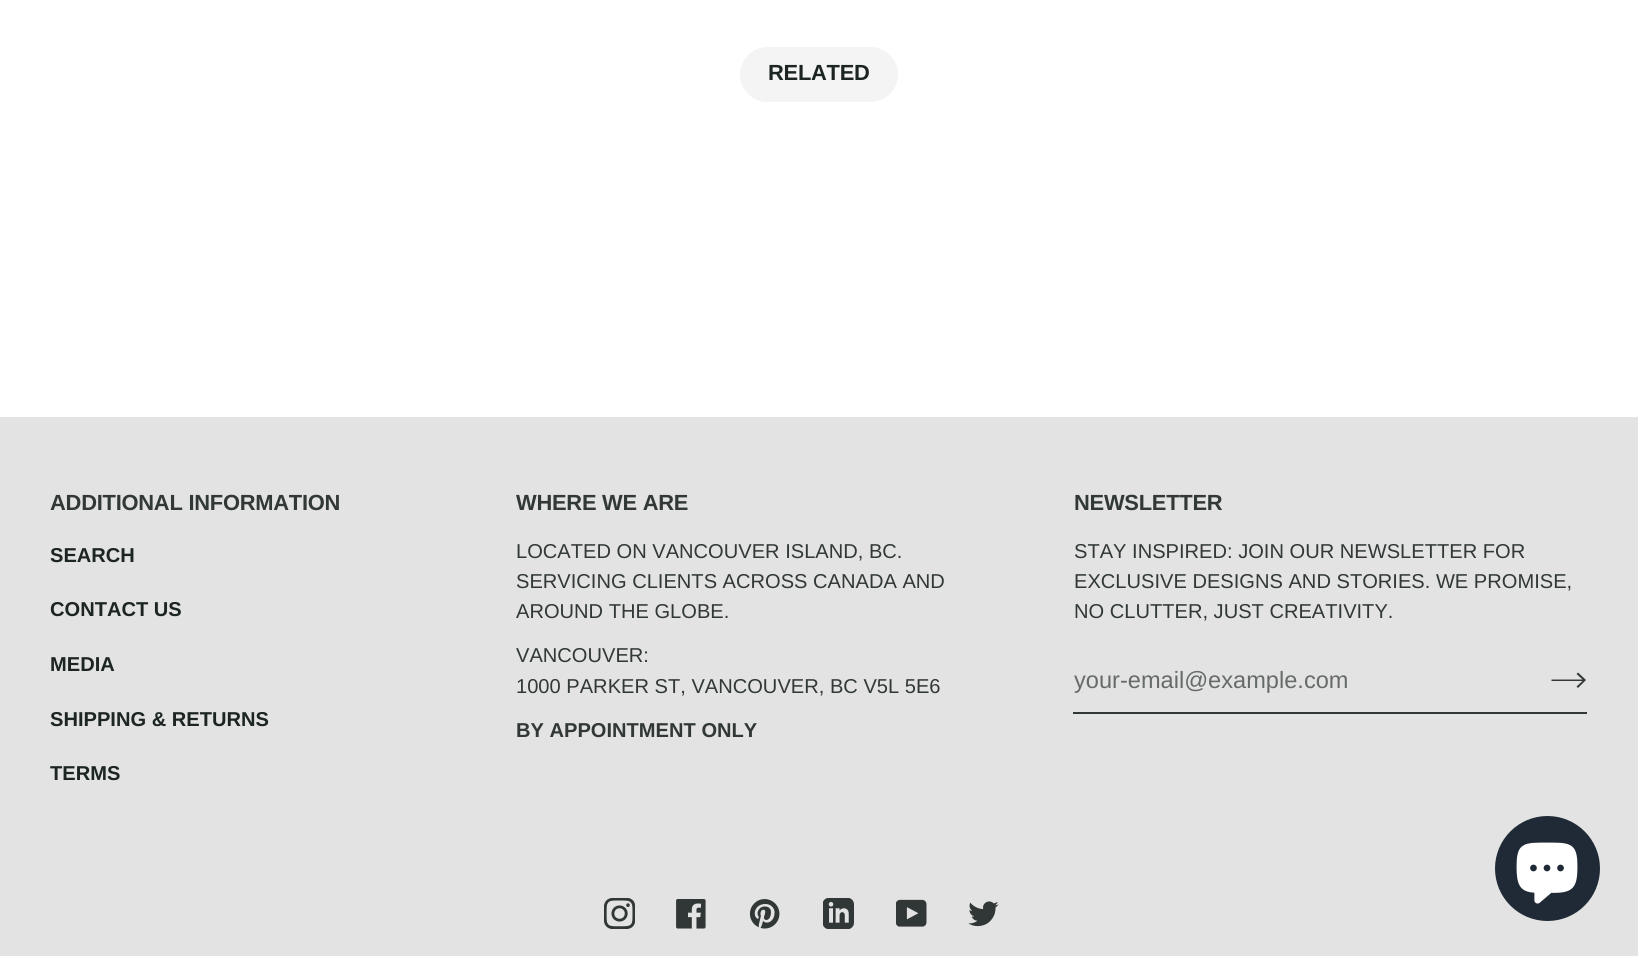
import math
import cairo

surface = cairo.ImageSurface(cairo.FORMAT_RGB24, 1638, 956)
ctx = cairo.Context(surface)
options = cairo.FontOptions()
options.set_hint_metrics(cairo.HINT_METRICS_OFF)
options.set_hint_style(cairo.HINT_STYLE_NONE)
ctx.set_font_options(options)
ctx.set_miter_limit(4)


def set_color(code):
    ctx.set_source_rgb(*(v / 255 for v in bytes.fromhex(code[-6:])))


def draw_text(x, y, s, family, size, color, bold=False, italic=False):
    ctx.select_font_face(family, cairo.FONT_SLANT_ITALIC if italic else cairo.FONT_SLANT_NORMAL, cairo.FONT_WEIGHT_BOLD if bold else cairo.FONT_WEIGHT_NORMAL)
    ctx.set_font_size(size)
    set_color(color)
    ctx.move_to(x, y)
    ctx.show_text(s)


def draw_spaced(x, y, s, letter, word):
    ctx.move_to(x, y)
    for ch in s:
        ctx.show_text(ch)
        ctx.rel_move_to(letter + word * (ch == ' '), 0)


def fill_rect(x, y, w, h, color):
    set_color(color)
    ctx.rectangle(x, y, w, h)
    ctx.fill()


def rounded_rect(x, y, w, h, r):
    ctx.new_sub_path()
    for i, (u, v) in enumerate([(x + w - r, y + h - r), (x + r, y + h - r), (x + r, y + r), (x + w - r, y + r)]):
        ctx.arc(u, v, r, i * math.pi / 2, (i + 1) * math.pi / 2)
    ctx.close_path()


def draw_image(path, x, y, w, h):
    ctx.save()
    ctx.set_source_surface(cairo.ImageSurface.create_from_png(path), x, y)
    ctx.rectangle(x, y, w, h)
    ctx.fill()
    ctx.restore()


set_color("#ffffff")
ctx.paint()
set_color("#f4f4f4")
rounded_rect(740, 47, 158, 55, 27.5)
ctx.fill()
ctx.select_font_face("Liberation Sans", cairo.FONT_SLANT_NORMAL, cairo.FONT_WEIGHT_BOLD)
ctx.set_font_size(21.9)
set_color("#1d2523")
draw_spaced(768, 80, "RELATED", -0.25, 0)
fill_rect(0, 417, 1638, 539, "#e2e3e2")
draw_image("assets/img1.png", 604, 898, 31, 31)
draw_image("assets/img2.png", 676, 899, 30, 30)
draw_image("assets/img3.png", 749, 899, 31, 30)
draw_image("assets/img4.png", 823, 898, 31, 31)
draw_image("assets/img5.png", 896, 899, 31, 28)
draw_image("assets/img6.png", 968, 901, 31, 26)
set_color("#313836")
draw_spaced(50, 510, "ADDITIONAL INFORMATION", -0.25, 0)
draw_text(50, 562, "SEARCH", "Liberation Sans", 20.1, "#1d2523", bold=True)
draw_text(50, 616, "CONTACT US", "Liberation Sans", 20.1, "#1d2523", bold=True)
draw_text(50, 671, "MEDIA", "Liberation Sans", 20.1, "#1d2523", bold=True)
draw_text(50, 726, "SHIPPING & RETURNS", "Liberation Sans", 20.1, "#1d2523", bold=True)
draw_text(50, 780, "TERMS", "Liberation Sans", 20.1, "#1d2523", bold=True)
ctx.set_font_size(21.9)
set_color("#313836")
draw_spaced(516, 510, "WHERE WE ARE", -0.25, 0)
draw_text(516, 558, "LOCATED ON VANCOUVER ISLAND, BC.", "Liberation Sans", 20.1, "#313836")
draw_text(516, 588, "SERVICING CLIENTS ACROSS CANADA AND", "Liberation Sans", 20.1, "#313836")
draw_text(516, 618, "AROUND THE GLOBE.", "Liberation Sans", 20.1, "#313836")
draw_text(516, 662, "VANCOUVER:", "Liberation Sans", 20.1, "#313836")
draw_text(516, 693, "1000 PARKER ST, VANCOUVER, BC V5L 5E6", "Liberation Sans", 20.1, "#313836")
draw_text(516, 737, "BY APPOINTMENT ONLY", "Liberation Sans", 20.1, "#313836", bold=True)
ctx.set_font_size(21.9)
draw_spaced(1074, 510, "NEWSLETTER", -0.25, 0)
draw_text(1074, 558, "STAY INSPIRED: JOIN OUR NEWSLETTER FOR", "Liberation Sans", 20.1, "#313836")
draw_text(1074, 588, "EXCLUSIVE DESIGNS AND STORIES. WE PROMISE,", "Liberation Sans", 20.1, "#313836")
draw_text(1074, 618, "NO CLUTTER, JUST CREATIVITY.", "Liberation Sans", 20.1, "#313836")
fill_rect(1073, 712, 514, 2, "#313836")
draw_text(1074, 688, "your-email@example.com", "Liberation Sans", 23.6, "#666b69")
set_color("#313836")
ctx.new_path()
ctx.move_to(1576.5, 674)
ctx.line_to(1578, 672.5)
ctx.line_to(1586, 680)
ctx.line_to(1578, 688)
ctx.line_to(1576.5, 686.5)
ctx.line_to(1582.5, 681)
ctx.line_to(1551.5, 681)
ctx.line_to(1551.5, 679.5)
ctx.line_to(1582.5, 679.5)
ctx.close_path()
ctx.fill()
set_color("#202a36")
ctx.arc(1547.5, 868.5, 52.5, 0, 2 * math.pi)
ctx.fill()
draw_image("assets/img7.png", 1516, 842, 62, 62)
surface.write_to_png("output.png")
